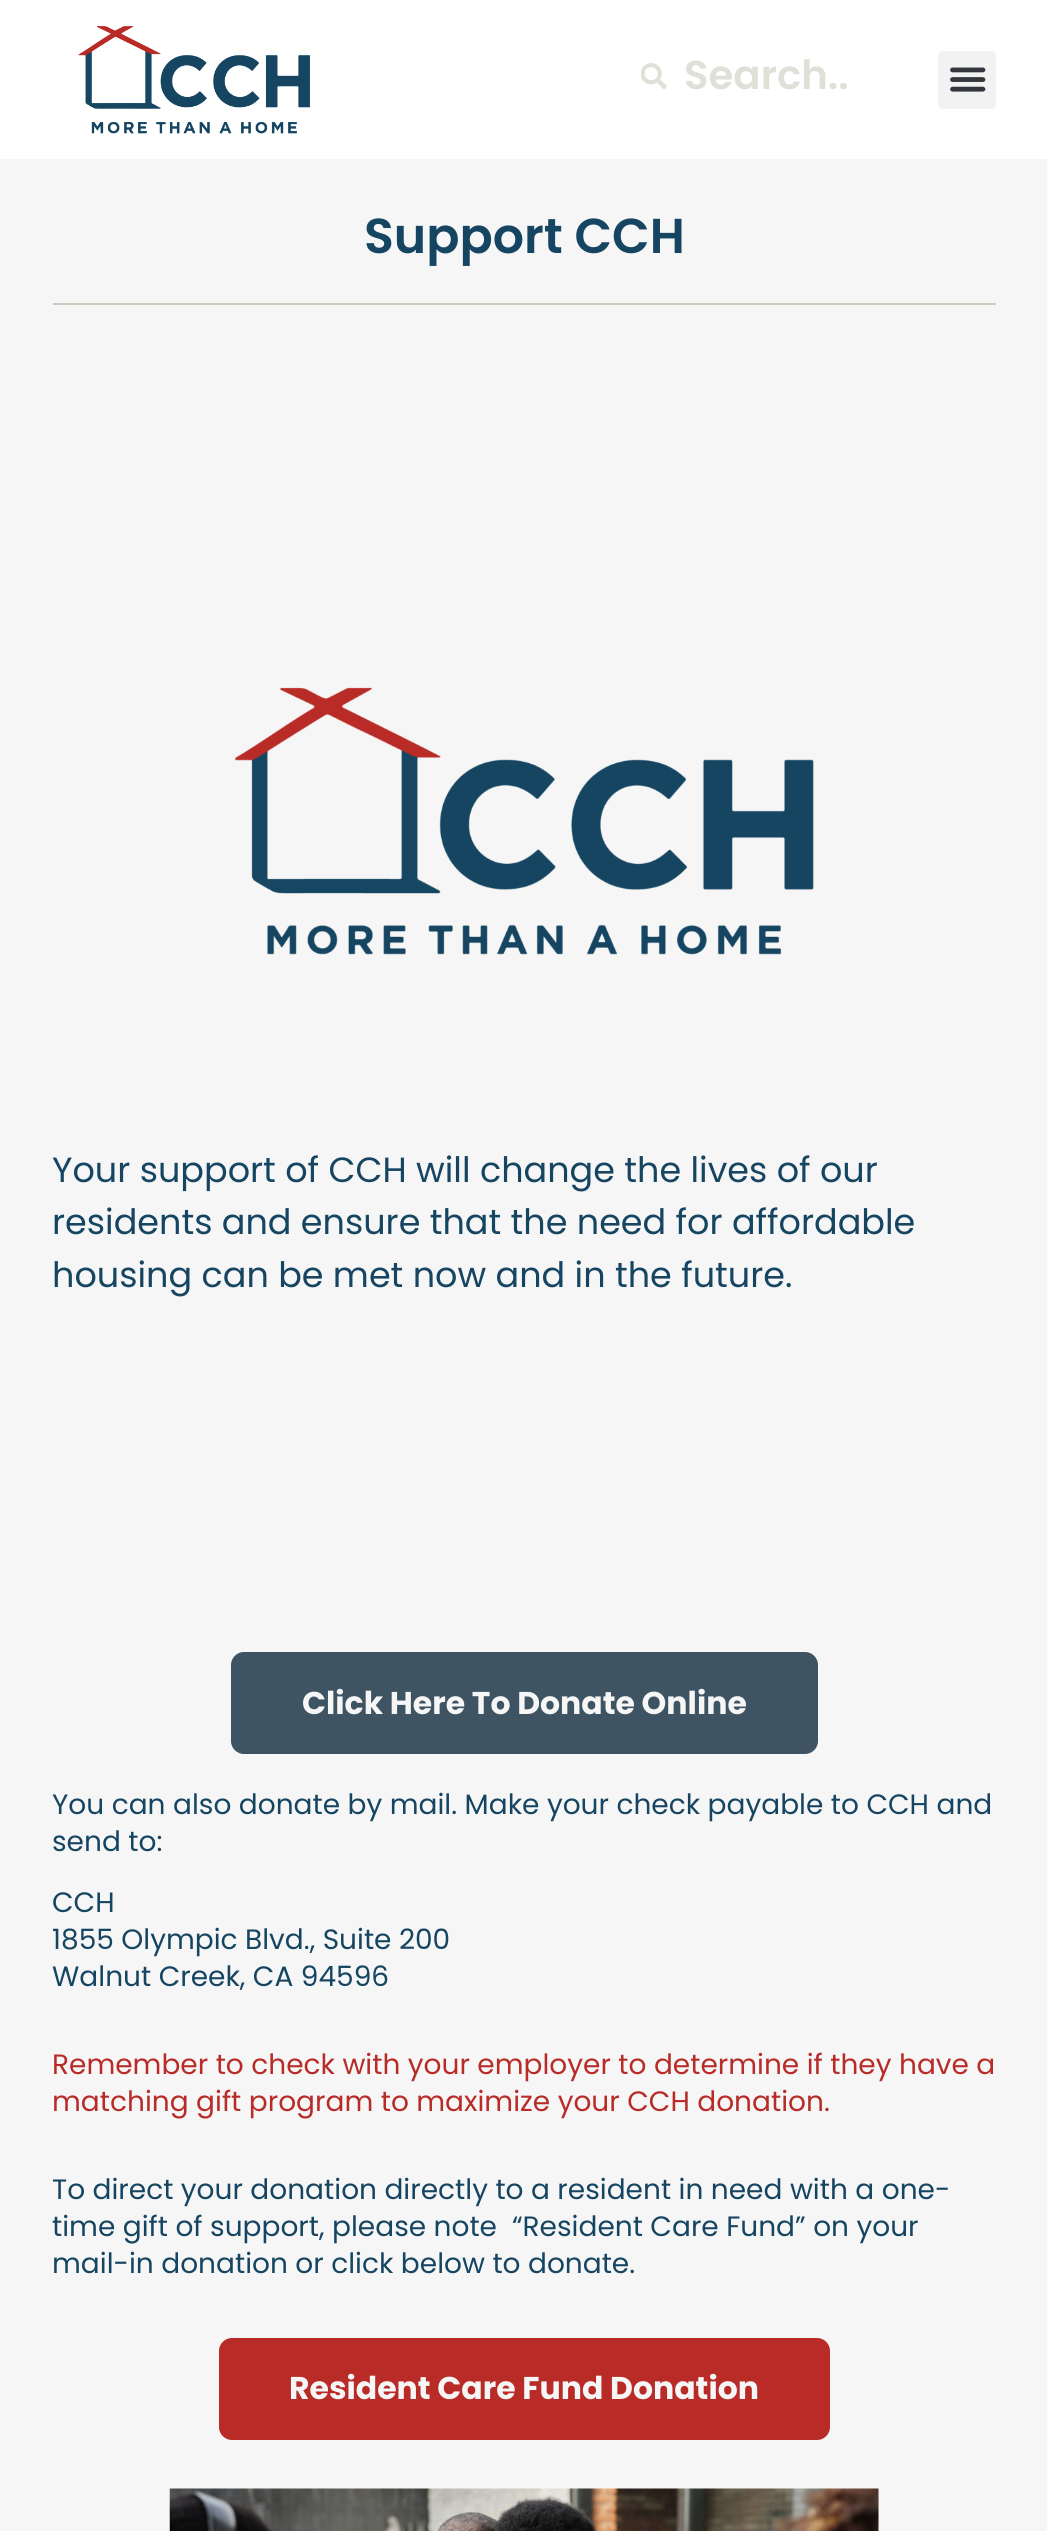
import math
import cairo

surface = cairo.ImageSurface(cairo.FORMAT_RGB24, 1047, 2531)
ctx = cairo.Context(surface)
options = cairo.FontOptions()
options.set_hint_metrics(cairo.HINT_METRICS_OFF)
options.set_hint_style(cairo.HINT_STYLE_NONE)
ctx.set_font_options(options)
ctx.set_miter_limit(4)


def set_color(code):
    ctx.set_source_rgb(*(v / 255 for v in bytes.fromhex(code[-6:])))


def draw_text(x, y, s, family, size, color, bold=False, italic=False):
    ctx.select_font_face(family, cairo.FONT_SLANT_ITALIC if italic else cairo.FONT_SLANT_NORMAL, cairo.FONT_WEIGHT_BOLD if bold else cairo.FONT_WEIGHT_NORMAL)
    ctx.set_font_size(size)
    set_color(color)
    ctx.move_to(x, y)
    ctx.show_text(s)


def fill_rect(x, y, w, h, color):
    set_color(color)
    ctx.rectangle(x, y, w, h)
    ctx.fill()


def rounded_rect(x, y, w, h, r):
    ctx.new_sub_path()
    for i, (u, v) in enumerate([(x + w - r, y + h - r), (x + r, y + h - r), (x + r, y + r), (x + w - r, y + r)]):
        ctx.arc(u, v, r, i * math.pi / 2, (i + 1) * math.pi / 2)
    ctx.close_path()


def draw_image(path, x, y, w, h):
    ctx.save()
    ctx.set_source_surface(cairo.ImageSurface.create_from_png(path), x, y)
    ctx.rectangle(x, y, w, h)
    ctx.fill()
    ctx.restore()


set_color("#f6f6f6")
ctx.paint()
fill_rect(0, 0, 1047, 159, "#ffffff")
draw_image("assets/img1.png", 78, 26, 232, 108)
draw_image("assets/img2.png", 641, 63, 26, 26)
draw_text(684, 89, "Search..", "Poppins SemiBold", 40.25, "#e0e0d8")
set_color("#f2f2f2")
rounded_rect(938, 51, 58, 58, 5)
ctx.fill()
draw_image("assets/img3.png", 950, 67, 36, 25)
draw_text(364, 253, "Support CCH", "Poppins SemiBold", 49, "#164562")
fill_rect(53, 303, 943, 2, "#cbcbbe")
draw_image("assets/img4.png", 235, 687, 579, 268)
draw_text(52, 1182, "Your support of CCH will change the lives of our", "Poppins", 35, "#164562")
draw_text(52, 1234, "residents and ensure that the need for affordable", "Poppins", 35, "#164562")
draw_text(52, 1287, "housing can be met now and in the future.", "Poppins", 35, "#164562")
set_color("#3e5462")
rounded_rect(228.5, 1649.5, 592, 107, 15.5)
ctx.fill_preserve()
set_color("#f6f6f6")
ctx.set_line_width(5)
ctx.stroke()
draw_text(302, 1714, "Click Here To Donate Online", "Poppins", 31.5, "#f6f6f6", bold=True)
draw_text(52, 1814, "You can also donate by mail. Make your check payable to CCH and", "Poppins", 28, "#164562")
draw_text(52, 1851, "send to:", "Poppins", 28, "#164562")
draw_text(52, 1912, "CCH", "Poppins", 28, "#164562")
draw_text(52, 1949, "1855 Olympic Blvd., Suite 200", "Poppins", 28, "#164562")
draw_text(52, 1986, "Walnut Creek, CA 94596", "Poppins", 28, "#164562")
draw_text(52, 2074, "Remember to check with your employer to determine if they have a", "Poppins", 28, "#b82b26")
draw_text(52, 2111, "matching gift program to maximize your CCH donation.", "Poppins", 28, "#b82b26")
draw_text(52, 2199, "To direct your donation directly to a resident in need with a one-", "Poppins", 28, "#164562")
draw_text(52, 2236, "time gift of support, please note  “Resident Care Fund” on your", "Poppins", 28, "#164562")
draw_text(52, 2273, "mail-in donation or click below to donate.", "Poppins", 28, "#164562")
set_color("#b82b26")
rounded_rect(216.5, 2335.5, 616, 107, 15.5)
ctx.fill_preserve()
set_color("#f6f6f6")
ctx.stroke()
draw_text(289, 2399, "Resident Care Fund Donation", "Poppins", 31.5, "#f6f6f6", bold=True)
draw_image("assets/img5.png", 169, 2488, 710, 43)
surface.write_to_png("output.png")
